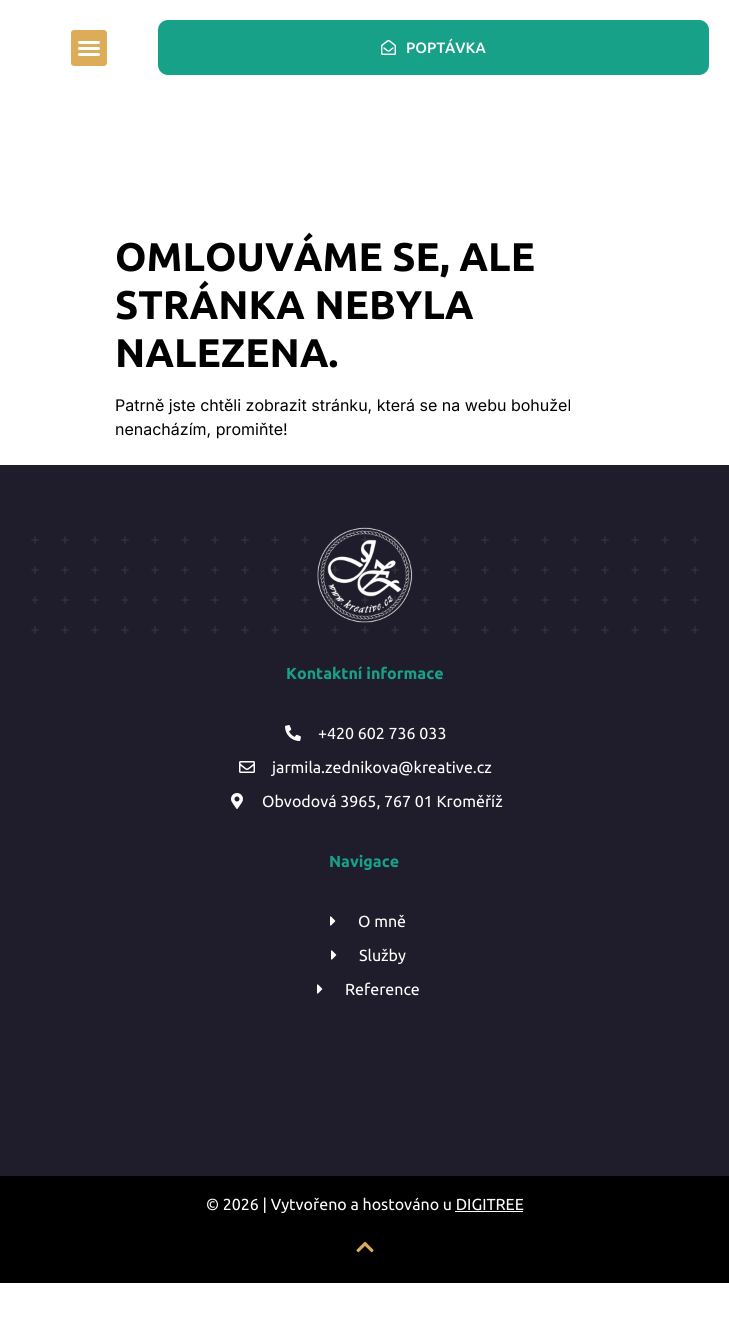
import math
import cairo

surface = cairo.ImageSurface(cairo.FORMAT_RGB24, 729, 1343)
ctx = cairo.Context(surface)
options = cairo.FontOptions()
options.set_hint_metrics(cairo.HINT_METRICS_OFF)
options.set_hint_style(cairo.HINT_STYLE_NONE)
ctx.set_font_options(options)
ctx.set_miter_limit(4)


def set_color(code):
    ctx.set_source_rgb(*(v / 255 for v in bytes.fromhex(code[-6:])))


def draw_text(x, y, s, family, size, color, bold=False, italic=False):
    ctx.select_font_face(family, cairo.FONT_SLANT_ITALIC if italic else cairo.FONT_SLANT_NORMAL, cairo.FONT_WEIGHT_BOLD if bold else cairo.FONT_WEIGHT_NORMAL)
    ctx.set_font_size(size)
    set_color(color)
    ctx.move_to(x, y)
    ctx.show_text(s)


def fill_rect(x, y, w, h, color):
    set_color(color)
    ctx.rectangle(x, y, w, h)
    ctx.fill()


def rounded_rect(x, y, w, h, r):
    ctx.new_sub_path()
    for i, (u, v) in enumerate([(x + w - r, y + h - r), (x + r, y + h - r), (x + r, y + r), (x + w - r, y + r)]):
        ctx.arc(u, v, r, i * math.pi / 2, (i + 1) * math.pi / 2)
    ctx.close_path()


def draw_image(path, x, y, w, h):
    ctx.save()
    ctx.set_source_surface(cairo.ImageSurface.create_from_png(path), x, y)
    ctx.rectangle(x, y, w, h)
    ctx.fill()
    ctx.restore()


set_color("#ffffff")
ctx.paint()
set_color("#ddac58")
rounded_rect(71, 30, 36, 36, 3)
ctx.fill()
draw_image("assets/img1.png", 78, 41, 22, 15)
set_color("#18a189")
rounded_rect(158, 20, 551, 55, 10)
ctx.fill()
draw_image("assets/img2.png", 381, 40, 15, 15)
draw_text(406, 53, "POPTÁVKA", "Ubuntu Medium", 15, "#ffffff")
draw_text(115, 271, "OMLOUVÁME SE, ALE", "Ubuntu", 40, "#000000", bold=True)
draw_text(115, 319, "STRÁNKA NEBYLA", "Ubuntu", 40, "#000000", bold=True)
draw_text(115, 367, "NALEZENA.", "Ubuntu", 40, "#000000", bold=True)
draw_text(115, 411, "Patrně jste chtěli zobrazit stránku, která se na webu bohužel", "Inter", 16, "#000000")
draw_text(115, 435, "nenacházím, promiňte!", "Inter", 16, "#000000")
fill_rect(0, 465, 729, 711, "#1f1d2b")
draw_image("assets/img4.png", 31, 536, 668, 98)
draw_image("assets/img3.png", 317, 527, 96, 96)
draw_text(286, 679, "Kontaktní informace", "Ubuntu", 16, "#18a189", bold=True)
draw_image("assets/img5.png", 285, 725, 16, 16)
draw_text(318, 739, "+420 602 736 033", "Ubuntu", 16, "#ffffff")
draw_image("assets/img6.png", 239, 761, 16, 12)
draw_text(272, 773, "jarmila.zednikova@kreative.cz", "Ubuntu", 16, "#ffffff")
draw_image("assets/img7.png", 231, 793, 12, 16)
draw_text(262, 807, "Obvodová 3965, 767 01 Kroměříž", "Ubuntu", 16, "#ffffff")
draw_text(329, 867, "Navigace", "Ubuntu", 16, "#18a189", bold=True)
draw_image("assets/img8.png", 330, 916, 6, 10)
draw_text(358, 927, "O mně", "Ubuntu", 16, "#ffffff")
draw_image("assets/img8.png", 331, 950, 6, 10)
draw_text(359, 961, "Služby", "Ubuntu", 16, "#ffffff")
draw_image("assets/img8.png", 317, 984, 6, 10)
draw_text(345, 995, "Reference", "Ubuntu", 16, "#ffffff")
fill_rect(0, 1176, 729, 107, "#000000")
draw_text(206, 1210, "© 2026 | Vytvořeno a hostováno u DIGITREE", "Ubuntu", 16, "#ffffff")
fill_rect(455, 1211, 68, 1, "#ffffff")
draw_image("assets/img9.png", 356, 1241, 18, 12)
surface.write_to_png("output.png")
